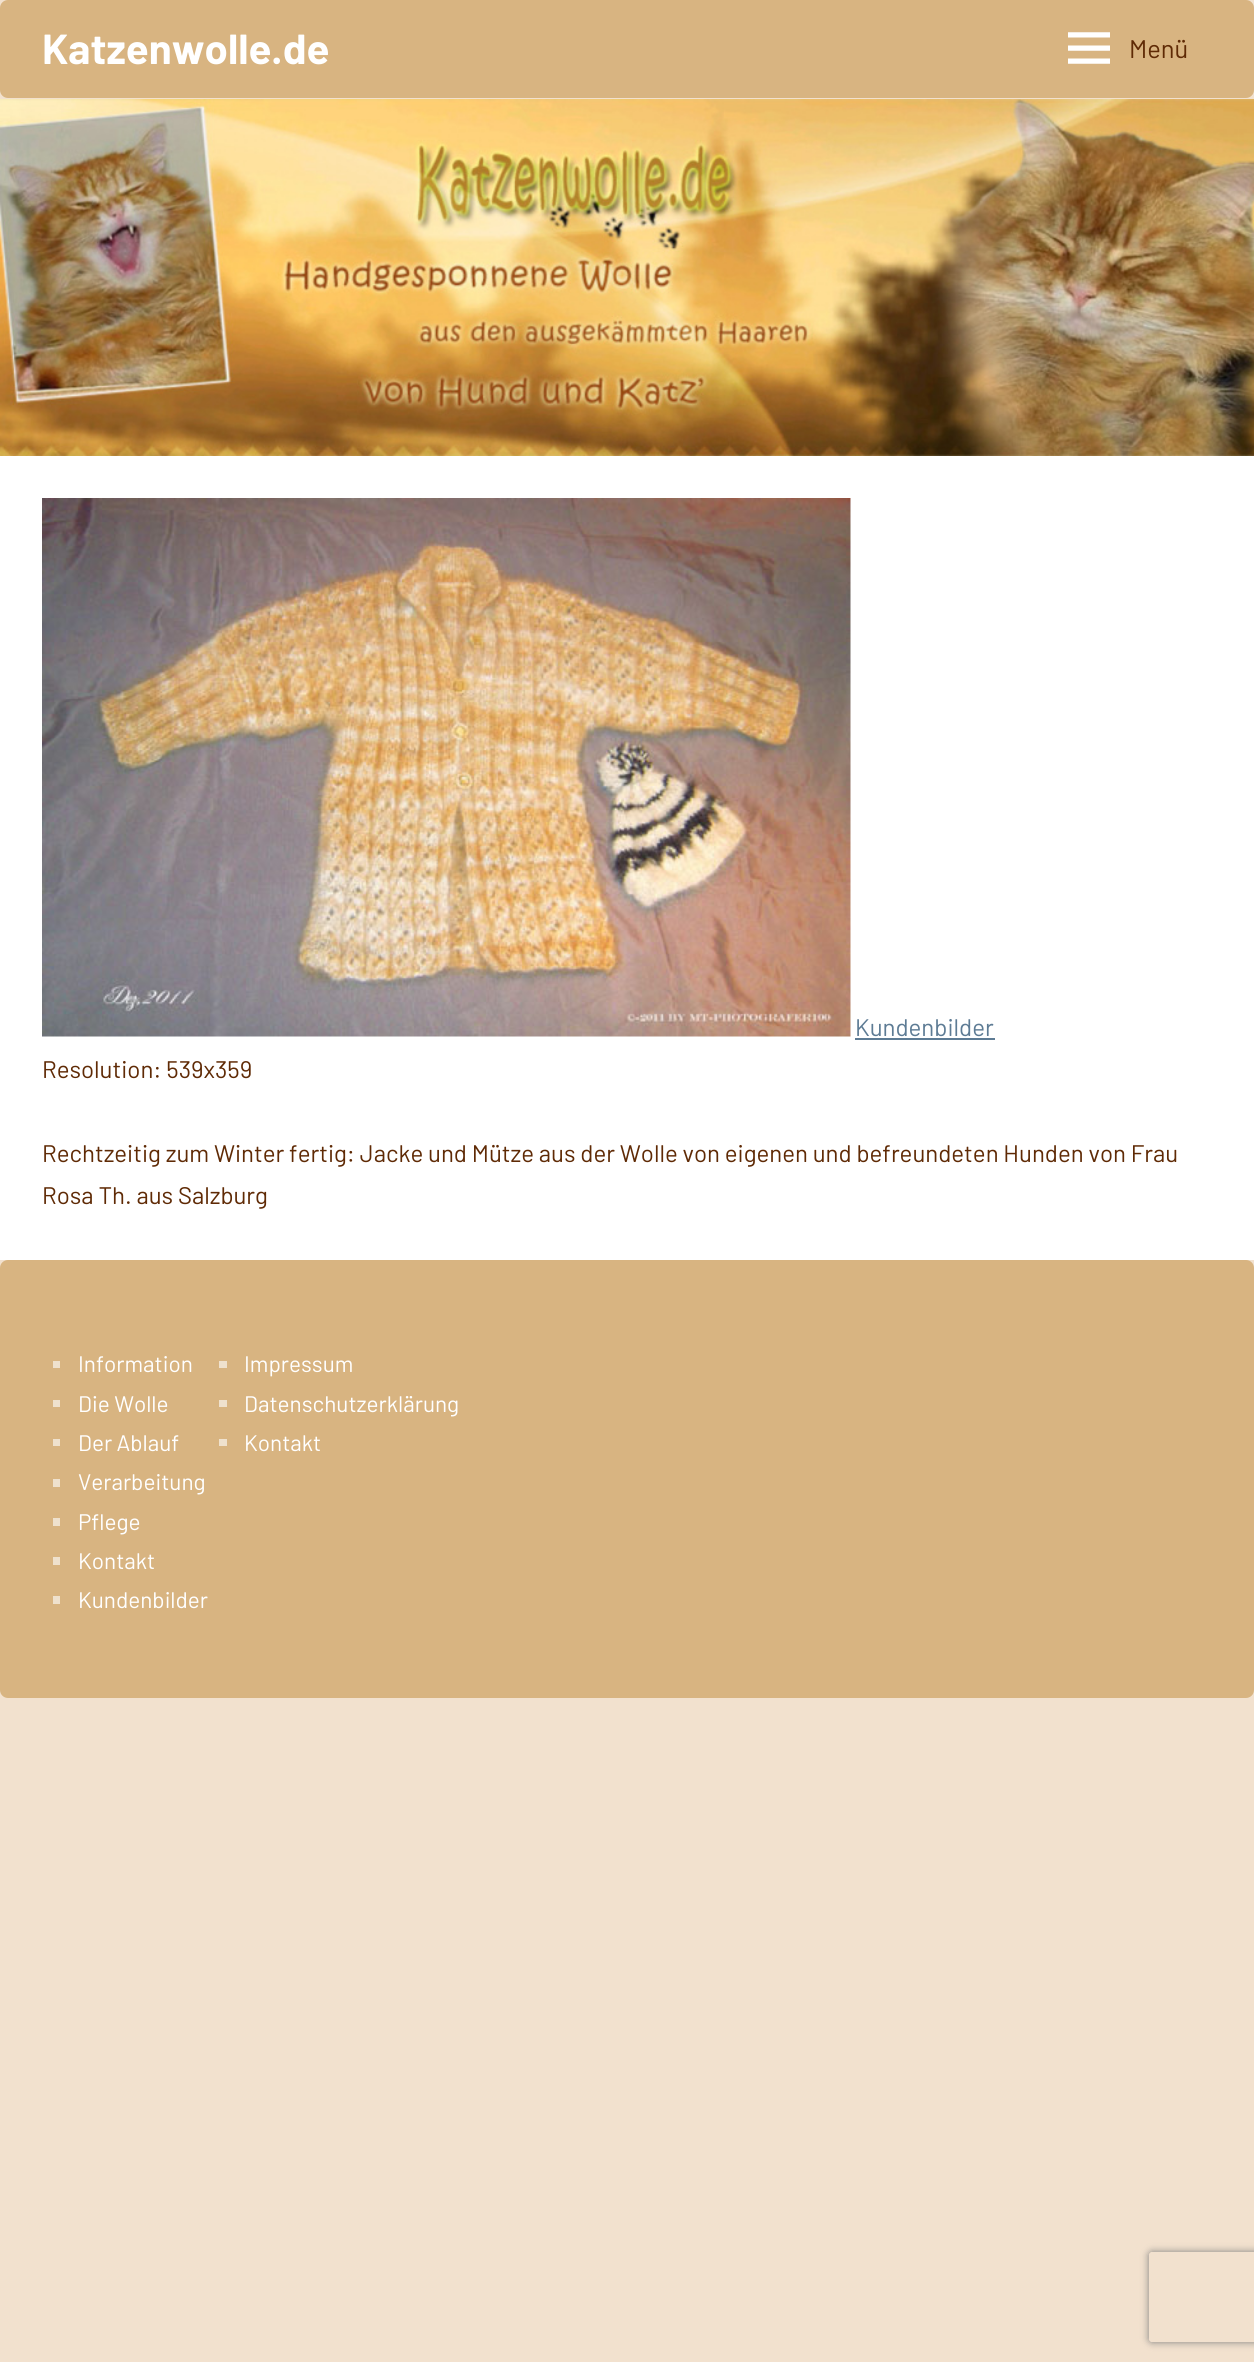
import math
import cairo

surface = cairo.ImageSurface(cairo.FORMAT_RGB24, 1254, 2362)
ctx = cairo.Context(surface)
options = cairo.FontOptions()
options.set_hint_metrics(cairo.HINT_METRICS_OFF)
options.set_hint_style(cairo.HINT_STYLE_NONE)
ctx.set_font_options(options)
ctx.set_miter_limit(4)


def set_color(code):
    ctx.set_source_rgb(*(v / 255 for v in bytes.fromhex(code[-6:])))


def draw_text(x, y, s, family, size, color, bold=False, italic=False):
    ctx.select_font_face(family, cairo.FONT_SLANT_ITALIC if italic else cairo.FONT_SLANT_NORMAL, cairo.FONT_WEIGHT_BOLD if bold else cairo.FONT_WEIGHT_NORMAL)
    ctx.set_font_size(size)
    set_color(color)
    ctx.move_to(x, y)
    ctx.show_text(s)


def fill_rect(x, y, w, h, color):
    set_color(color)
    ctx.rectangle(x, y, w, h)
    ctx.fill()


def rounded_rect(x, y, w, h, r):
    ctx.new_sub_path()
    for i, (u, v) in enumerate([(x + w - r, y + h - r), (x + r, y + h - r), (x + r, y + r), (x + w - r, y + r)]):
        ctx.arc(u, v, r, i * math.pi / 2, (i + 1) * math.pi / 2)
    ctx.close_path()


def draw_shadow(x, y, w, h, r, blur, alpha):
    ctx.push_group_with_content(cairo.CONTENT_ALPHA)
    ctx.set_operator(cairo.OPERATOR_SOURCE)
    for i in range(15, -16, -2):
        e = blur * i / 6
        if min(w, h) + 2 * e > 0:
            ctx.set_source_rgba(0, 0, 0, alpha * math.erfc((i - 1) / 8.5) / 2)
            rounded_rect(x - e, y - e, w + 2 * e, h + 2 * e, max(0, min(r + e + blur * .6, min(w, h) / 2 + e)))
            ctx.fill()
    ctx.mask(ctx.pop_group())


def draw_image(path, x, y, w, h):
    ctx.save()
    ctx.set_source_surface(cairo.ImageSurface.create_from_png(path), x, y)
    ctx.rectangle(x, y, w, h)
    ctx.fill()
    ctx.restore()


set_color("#f2e1ce")
ctx.paint()
set_color("#d8b481")
rounded_rect(0, 0, 1254, 98, 8)
ctx.fill()
draw_text(42, 64, "Katzenwolle.de", "Barlow", 42, "#ffffff", bold=True)
draw_image("assets/img1.png", 1068, 32, 42, 32)
draw_text(1129, 58, "Menü", "Barlow", 25.5, "#5f2a05")
draw_image("assets/img2.png", 0, 99, 1254, 357)
fill_rect(0, 456, 1254, 804, "#ffffff")
draw_image("assets/img3.png", 42, 498, 809, 539)
draw_text(855, 1036, "Kundenbilder", "Barlow", 24, "#5d7b94")
fill_rect(855, 1038, 140, 2, "#5d7b94")
draw_text(42, 1078, "Resolution: 539x359", "Barlow", 24, "#5f2a05")
draw_text(42, 1162, "Rechtzeitig zum Winter fertig: Jacke und Mütze aus der Wolle von eigenen und befreundeten Hunden von Frau", "Barlow", 24, "#5f2a05")
draw_text(42, 1204, "Rosa Th. aus Salzburg", "Barlow", 24, "#5f2a05")
set_color("#d8b481")
rounded_rect(0, 1260, 1254, 438, 8)
ctx.fill()
fill_rect(53, 1361, 7, 7, "#efe1cd")
draw_text(78, 1372, "Information", "Barlow", 22.5, "#ffffff")
fill_rect(53, 1400, 7, 7, "#efe1cd")
draw_text(78, 1412, "Die Wolle", "Barlow", 22.5, "#ffffff")
fill_rect(53, 1439, 7, 7, "#efe1cd")
draw_text(78, 1451, "Der Ablauf", "Barlow", 22.5, "#ffffff")
fill_rect(53, 1479, 7, 8, "#efe1cd")
draw_text(78, 1490, "Verarbeitung", "Barlow", 22.5, "#ffffff")
fill_rect(53, 1518, 7, 8, "#efe1cd")
draw_text(78, 1530, "Pflege", "Barlow", 22.5, "#ffffff")
fill_rect(53, 1557, 7, 8, "#efe1cd")
draw_text(78, 1569, "Kontakt", "Barlow", 22.5, "#ffffff")
fill_rect(53, 1596, 7, 8, "#efe1cd")
draw_text(78, 1608, "Kundenbilder", "Barlow", 22.5, "#ffffff")
fill_rect(219, 1361, 8, 7, "#efe1cd")
draw_text(244, 1372, "Impressum", "Barlow", 22.5, "#ffffff")
fill_rect(219, 1400, 8, 7, "#efe1cd")
draw_text(244, 1412, "Datenschutzerklärung", "Barlow", 22.5, "#ffffff")
fill_rect(219, 1439, 8, 7, "#efe1cd")
draw_text(244, 1451, "Kontakt", "Barlow", 22.5, "#ffffff")
ctx.save()
ctx.set_fill_rule(cairo.FILL_RULE_EVEN_ODD)
ctx.new_path()
ctx.move_to(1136, 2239)
ctx.line_to(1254, 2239)
ctx.line_to(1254, 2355)
ctx.line_to(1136, 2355)
ctx.close_path()
ctx.move_to(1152, 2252)
ctx.line_to(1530, 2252)
ctx.curve_to(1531.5, 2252, 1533, 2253.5, 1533, 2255)
ctx.line_to(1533, 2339)
ctx.curve_to(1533, 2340.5, 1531.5, 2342, 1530, 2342)
ctx.line_to(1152, 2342)
ctx.curve_to(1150.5, 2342, 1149, 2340.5, 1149, 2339)
ctx.line_to(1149, 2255)
ctx.curve_to(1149, 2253.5, 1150.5, 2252, 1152, 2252)
ctx.close_path()
ctx.clip()
set_color("#808080")
draw_shadow(1149, 2252, 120, 90, 3, 4, 1)
ctx.restore()
surface.write_to_png("output.png")
